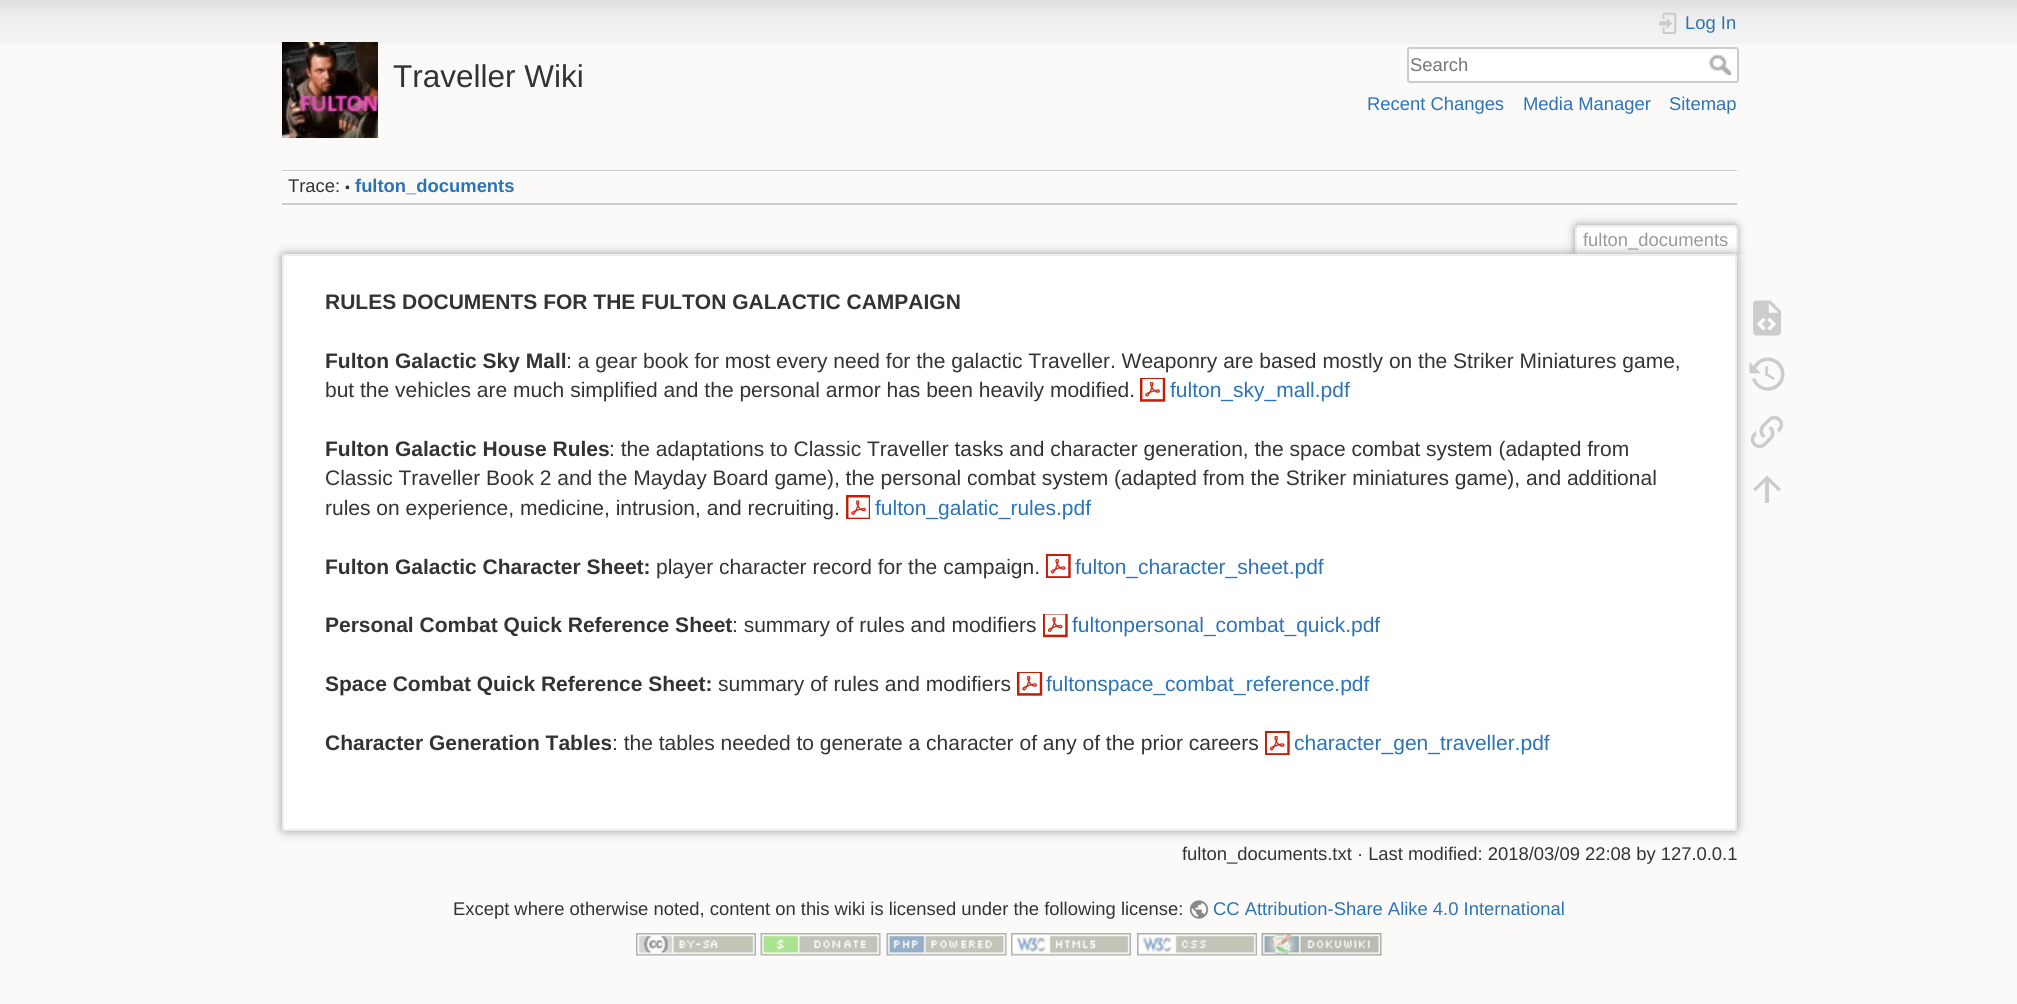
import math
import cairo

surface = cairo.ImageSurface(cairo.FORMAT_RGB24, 2017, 1004)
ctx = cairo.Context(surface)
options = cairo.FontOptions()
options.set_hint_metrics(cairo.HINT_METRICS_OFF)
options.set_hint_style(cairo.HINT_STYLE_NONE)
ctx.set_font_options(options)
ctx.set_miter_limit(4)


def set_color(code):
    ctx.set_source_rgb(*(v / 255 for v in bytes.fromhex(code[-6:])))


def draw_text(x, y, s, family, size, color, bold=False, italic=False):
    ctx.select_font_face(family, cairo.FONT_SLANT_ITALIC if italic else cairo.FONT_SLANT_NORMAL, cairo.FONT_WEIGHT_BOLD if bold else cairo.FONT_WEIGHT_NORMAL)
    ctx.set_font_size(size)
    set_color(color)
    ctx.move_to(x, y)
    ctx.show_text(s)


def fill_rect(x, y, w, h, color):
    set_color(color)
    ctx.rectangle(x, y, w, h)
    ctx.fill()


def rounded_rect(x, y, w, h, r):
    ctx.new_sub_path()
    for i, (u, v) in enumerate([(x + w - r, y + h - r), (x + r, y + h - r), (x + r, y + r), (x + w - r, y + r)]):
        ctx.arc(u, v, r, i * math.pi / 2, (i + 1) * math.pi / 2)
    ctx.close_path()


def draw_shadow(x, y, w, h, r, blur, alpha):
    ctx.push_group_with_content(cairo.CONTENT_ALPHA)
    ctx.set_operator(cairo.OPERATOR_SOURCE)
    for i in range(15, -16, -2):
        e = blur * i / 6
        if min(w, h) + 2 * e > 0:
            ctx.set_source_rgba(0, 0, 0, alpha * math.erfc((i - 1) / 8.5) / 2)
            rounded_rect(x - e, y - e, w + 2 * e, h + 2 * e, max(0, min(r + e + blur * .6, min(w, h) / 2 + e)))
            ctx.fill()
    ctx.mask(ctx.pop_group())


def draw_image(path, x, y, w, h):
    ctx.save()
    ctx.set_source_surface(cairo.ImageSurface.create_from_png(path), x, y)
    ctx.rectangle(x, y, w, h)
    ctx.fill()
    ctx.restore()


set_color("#fbfaf9")
ctx.paint()
draw_image("assets/img1.png", 0, 0, 2017, 44)
draw_image("assets/img2.png", 282, 42, 96, 96)
draw_text(393, 87, "Traveller Wiki", "Liberation Sans", 31.5, "#333333")
draw_image("assets/img3.png", 1659, 12, 18, 22)
draw_text(1685, 29, "Log In", "Liberation Sans", 18.4, "#2b73b7")
set_color("#ffffff")
rounded_rect(1408, 48, 330, 34, 2)
ctx.fill_preserve()
set_color("#cccccc")
ctx.stroke()
draw_text(1410, 71, "Search", "Liberation Sans", 18.4, "#757575")
draw_image("assets/img4.png", 1708, 54, 23, 21)
draw_text(1367, 110, "Recent Changes", "Liberation Sans", 18.4, "#2b73b7")
draw_text(1523, 110, "Media Manager", "Liberation Sans", 18.4, "#2b73b7")
draw_text(1669, 110, "Sitemap", "Liberation Sans", 18.4, "#2b73b7")
fill_rect(282, 170, 1455, 1, "#cccccc")
fill_rect(282, 205, 1455, 1, "#ffffff")
fill_rect(282, 171, 1455, 2, "#ffffff")
fill_rect(282, 203, 1455, 2, "#cccccc")
draw_text(288, 192, "Trace:", "Liberation Sans", 18.4, "#333333")
draw_text(345, 192, "•", "Liberation Sans", 14, "#333333")
draw_text(355, 192, "fulton_documents", "Liberation Sans", 18.4, "#2b73b7", bold=True)
ctx.save()
ctx.rectangle(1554, 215, 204, 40)
ctx.clip()
set_color("#999999")
draw_shadow(1575, 225, 162, 30, 3, 4.5, 1)
ctx.restore()
set_color("#ffffff")
ctx.new_path()
ctx.move_to(1578.5, 227)
ctx.line_to(1734.5, 227)
ctx.curve_to(1735.5, 227, 1736, 227.5, 1736, 228.5)
ctx.line_to(1736, 255)
ctx.line_to(1577, 255)
ctx.line_to(1577, 228.5)
ctx.curve_to(1577, 227.5, 1577.5, 227, 1578.5, 227)
ctx.close_path()
ctx.fill()
fill_rect(1577, 225, 159, 2, "#eeeeee")
fill_rect(1736, 227, 2, 28, "#eeeeee")
fill_rect(1575, 227, 2, 28, "#eeeeee")
draw_text(1583, 246, "fulton_documents", "Liberation Sans", 18.4, "#999999")
set_color("#999999")
draw_shadow(282, 254, 1455, 577, 3, 5, 1)
set_color("#ffffff")
rounded_rect(283, 255, 1453, 575, 2)
ctx.fill_preserve()
set_color("#eeeeee")
ctx.stroke()
draw_text(325, 309, "RULES DOCUMENTS FOR THE FULTON GALACTIC CAMPAIGN", "Liberation Sans", 21, "#333333", bold=True)
draw_text(325, 368, "Fulton Galactic Sky Mall", "Liberation Sans", 21, "#333333", bold=True)
draw_text(566, 368, ": a gear book for most every need for the galactic Traveller. Weaponry are based mostly on the Striker Miniatures game,", "Liberation Sans", 21, "#333333")
draw_text(325, 397, "but the vehicles are much simplified and the personal armor has been heavily modified.", "Liberation Sans", 21, "#333333")
draw_image("assets/img5.png", 1140, 378, 26, 24)
draw_text(1170, 397, "fulton_sky_mall.pdf", "Liberation Sans", 21, "#2b73b7")
draw_text(325, 456, "Fulton Galactic House Rules", "Liberation Sans", 21, "#333333", bold=True)
draw_text(609, 456, ": the adaptations to Classic Traveller tasks and character generation, the space combat system (adapted from", "Liberation Sans", 21, "#333333")
draw_text(325, 485, "Classic Traveller Book 2 and the Mayday Board game), the personal combat system (adapted from the Striker miniatures game), and additional", "Liberation Sans", 21, "#333333")
draw_text(325, 515, "rules on experience, medicine, intrusion, and recruiting.", "Liberation Sans", 21, "#333333")
draw_image("assets/img6.png", 846, 495, 24, 24)
draw_text(875, 515, "fulton_galatic_rules.pdf", "Liberation Sans", 21, "#2b73b7")
draw_text(325, 574, "Fulton Galactic Character Sheet:", "Liberation Sans", 21, "#333333", bold=True)
draw_text(656, 574, "player character record for the campaign.", "Liberation Sans", 21, "#333333")
draw_image("assets/img7.png", 1046, 554, 25, 24)
draw_text(1075, 574, "fulton_character_sheet.pdf", "Liberation Sans", 21, "#2b73b7")
draw_text(325, 632, "Personal Combat Quick Reference Sheet", "Liberation Sans", 21, "#333333", bold=True)
draw_text(732, 632, ": summary of rules and modifiers", "Liberation Sans", 21, "#333333")
draw_image("assets/img8.png", 1043, 614, 25, 24)
draw_text(1072, 632, "fultonpersonal_combat_quick.pdf", "Liberation Sans", 21, "#2b73b7")
draw_text(325, 691, "Space Combat Quick Reference Sheet:", "Liberation Sans", 21, "#333333", bold=True)
draw_text(718, 691, "summary of rules and modifiers", "Liberation Sans", 21, "#333333")
draw_image("assets/img5.png", 1017, 672, 26, 24)
draw_text(1046, 691, "fultonspace_combat_reference.pdf", "Liberation Sans", 21, "#2b73b7")
draw_text(325, 750, "Character Generation Tables", "Liberation Sans", 21, "#333333", bold=True)
draw_text(612, 750, ": the tables needed to generate a character of any of the prior careers", "Liberation Sans", 21, "#333333")
draw_image("assets/img7.png", 1265, 731, 25, 24)
draw_text(1294, 750, "character_gen_traveller.pdf", "Liberation Sans", 21, "#2b73b7")
draw_text(1182, 860, "fulton_documents.txt · Last modified: 2018/03/09 22:08 by 127.0.0.1", "Liberation Sans", 18.4, "#333333")
draw_image("assets/img9.png", 1753, 300, 28, 36)
draw_image("assets/img10.png", 1749, 357, 36, 34)
draw_image("assets/img11.png", 1750, 415, 34, 34)
set_color("#cccccc")
ctx.new_path()
ctx.move_to(1769, 503)
ctx.line_to(1765, 503)
ctx.line_to(1765, 482)
ctx.line_to(1755.5, 491.5)
ctx.line_to(1753, 489)
ctx.line_to(1767, 475.5)
ctx.line_to(1781, 489)
ctx.line_to(1778.5, 491.5)
ctx.line_to(1769, 482)
ctx.close_path()
ctx.fill()
draw_text(453, 915, "Except where otherwise noted, content on this wiki is licensed under the following license:", "Liberation Sans", 18.4, "#333333")
draw_image("assets/img12.png", 1189, 900, 20, 19)
draw_text(1213, 915, "CC Attribution-Share Alike 4.0 International", "Liberation Sans", 18.4, "#2b73b7")
draw_image("assets/img13.png", 636, 933, 120, 23)
draw_image("assets/img14.png", 760, 933, 121, 23)
draw_image("assets/img15.png", 886, 933, 121, 23)
draw_image("assets/img16.png", 1011, 933, 120, 23)
draw_image("assets/img17.png", 1137, 933, 120, 23)
draw_image("assets/img18.png", 1261, 933, 121, 23)
surface.write_to_png("output.png")
